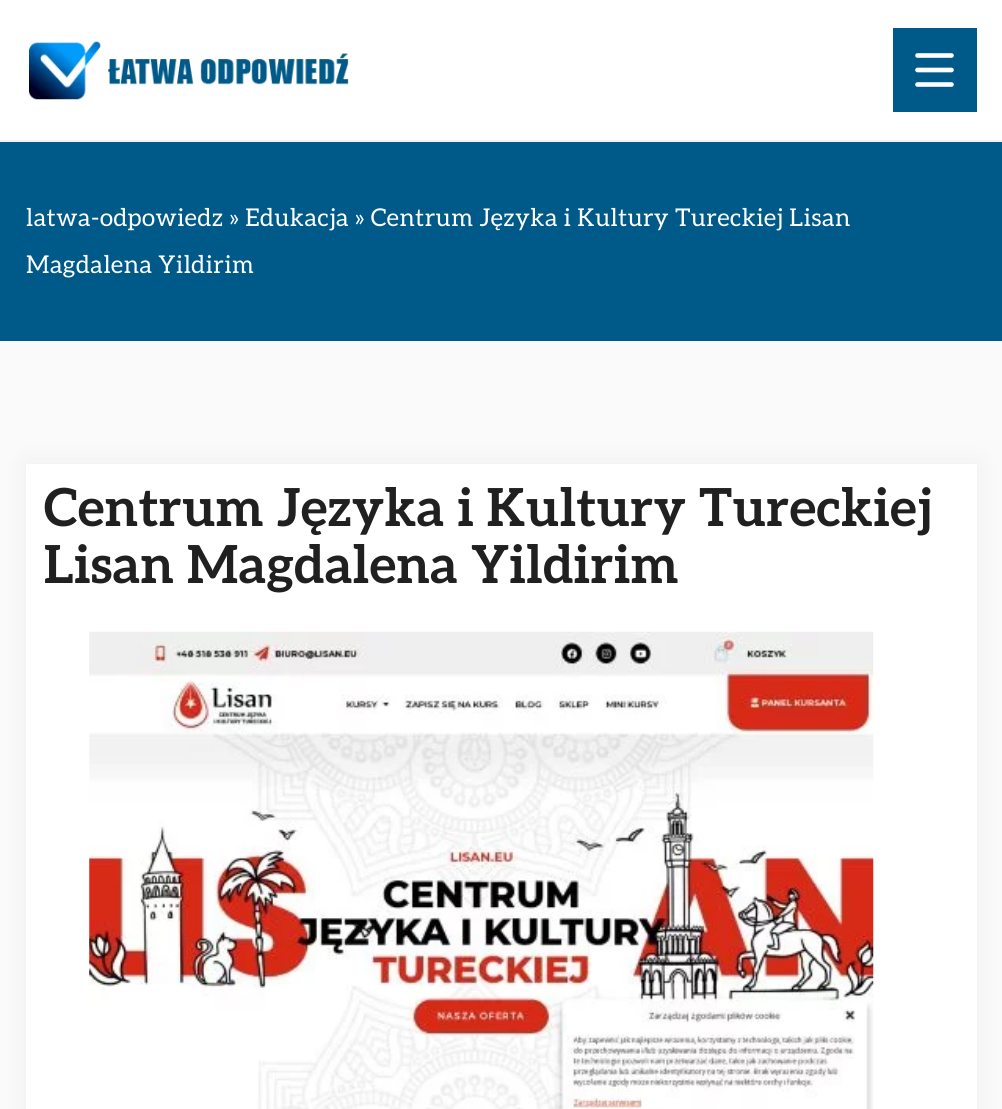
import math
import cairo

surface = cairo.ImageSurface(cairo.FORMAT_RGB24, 1002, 1109)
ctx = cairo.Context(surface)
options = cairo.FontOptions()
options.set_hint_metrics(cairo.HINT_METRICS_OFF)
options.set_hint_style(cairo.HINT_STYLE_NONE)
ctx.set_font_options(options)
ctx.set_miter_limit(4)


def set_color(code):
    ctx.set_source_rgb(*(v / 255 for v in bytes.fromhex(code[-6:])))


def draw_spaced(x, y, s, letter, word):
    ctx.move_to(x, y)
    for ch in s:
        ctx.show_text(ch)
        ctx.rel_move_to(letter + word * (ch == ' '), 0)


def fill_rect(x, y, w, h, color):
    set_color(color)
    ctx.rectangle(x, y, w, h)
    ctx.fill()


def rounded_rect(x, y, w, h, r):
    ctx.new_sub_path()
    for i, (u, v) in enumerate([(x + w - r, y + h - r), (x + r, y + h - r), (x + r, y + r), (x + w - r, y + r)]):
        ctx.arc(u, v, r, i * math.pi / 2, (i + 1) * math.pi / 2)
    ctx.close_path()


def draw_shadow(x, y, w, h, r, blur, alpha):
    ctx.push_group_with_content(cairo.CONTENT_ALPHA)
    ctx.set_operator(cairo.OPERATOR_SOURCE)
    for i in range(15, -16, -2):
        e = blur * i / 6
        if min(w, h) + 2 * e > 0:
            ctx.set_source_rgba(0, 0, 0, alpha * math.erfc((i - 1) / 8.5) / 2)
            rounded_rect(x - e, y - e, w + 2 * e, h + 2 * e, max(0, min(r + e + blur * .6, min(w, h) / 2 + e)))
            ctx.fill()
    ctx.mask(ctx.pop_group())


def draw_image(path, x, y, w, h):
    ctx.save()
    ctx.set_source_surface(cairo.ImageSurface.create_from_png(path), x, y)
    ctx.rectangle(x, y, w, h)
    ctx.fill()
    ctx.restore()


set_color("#fafafa")
ctx.paint()
fill_rect(0, 0, 1002, 140, "#ffffff")
fill_rect(0, 140, 1002, 2, "#f2f2f2")
draw_image("assets/img1.png", 29, 41, 320, 59)
fill_rect(893, 28, 84, 84, "#005a89")
ctx.new_path()
ctx.move_to(917.5, 55.5)
ctx.line_to(951.5, 55.5)
ctx.move_to(917.5, 70)
ctx.line_to(951.5, 70)
ctx.move_to(951.5, 84.5)
ctx.line_to(917.5, 84.5)
set_color("#ffffff")
ctx.set_line_width(4.6)
ctx.set_line_cap(cairo.LINE_CAP_ROUND)
ctx.stroke()
fill_rect(0, 142, 1002, 199, "#005a89")
ctx.select_font_face("Aleo")
ctx.set_font_size(24.5)
set_color("#ffffff")
draw_spaced(26, 226, "latwa-odpowiedz » Edukacja » Centrum Języka i Kultury Tureckiej Lisan", 0.53, 0)
draw_spaced(26, 273, "Magdalena Yildirim", 0.53, 0)
set_color("#000000")
draw_shadow(26, 464, 951, 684, 0, 13, 0.05)
fill_rect(26, 464, 951, 645, "#ffffff")
ctx.select_font_face("Aleo", cairo.FONT_SLANT_NORMAL, cairo.FONT_WEIGHT_BOLD)
ctx.set_font_size(52.5)
set_color("#202020")
draw_spaced(44, 526, "Centrum Języka i Kultury Tureckiej", 0.53, 0)
draw_spaced(44, 583, "Lisan Magdalena Yildirim", 0.53, 0)
draw_image("assets/img2.png", 89, 631, 785, 478)
surface.write_to_png("output.png")
